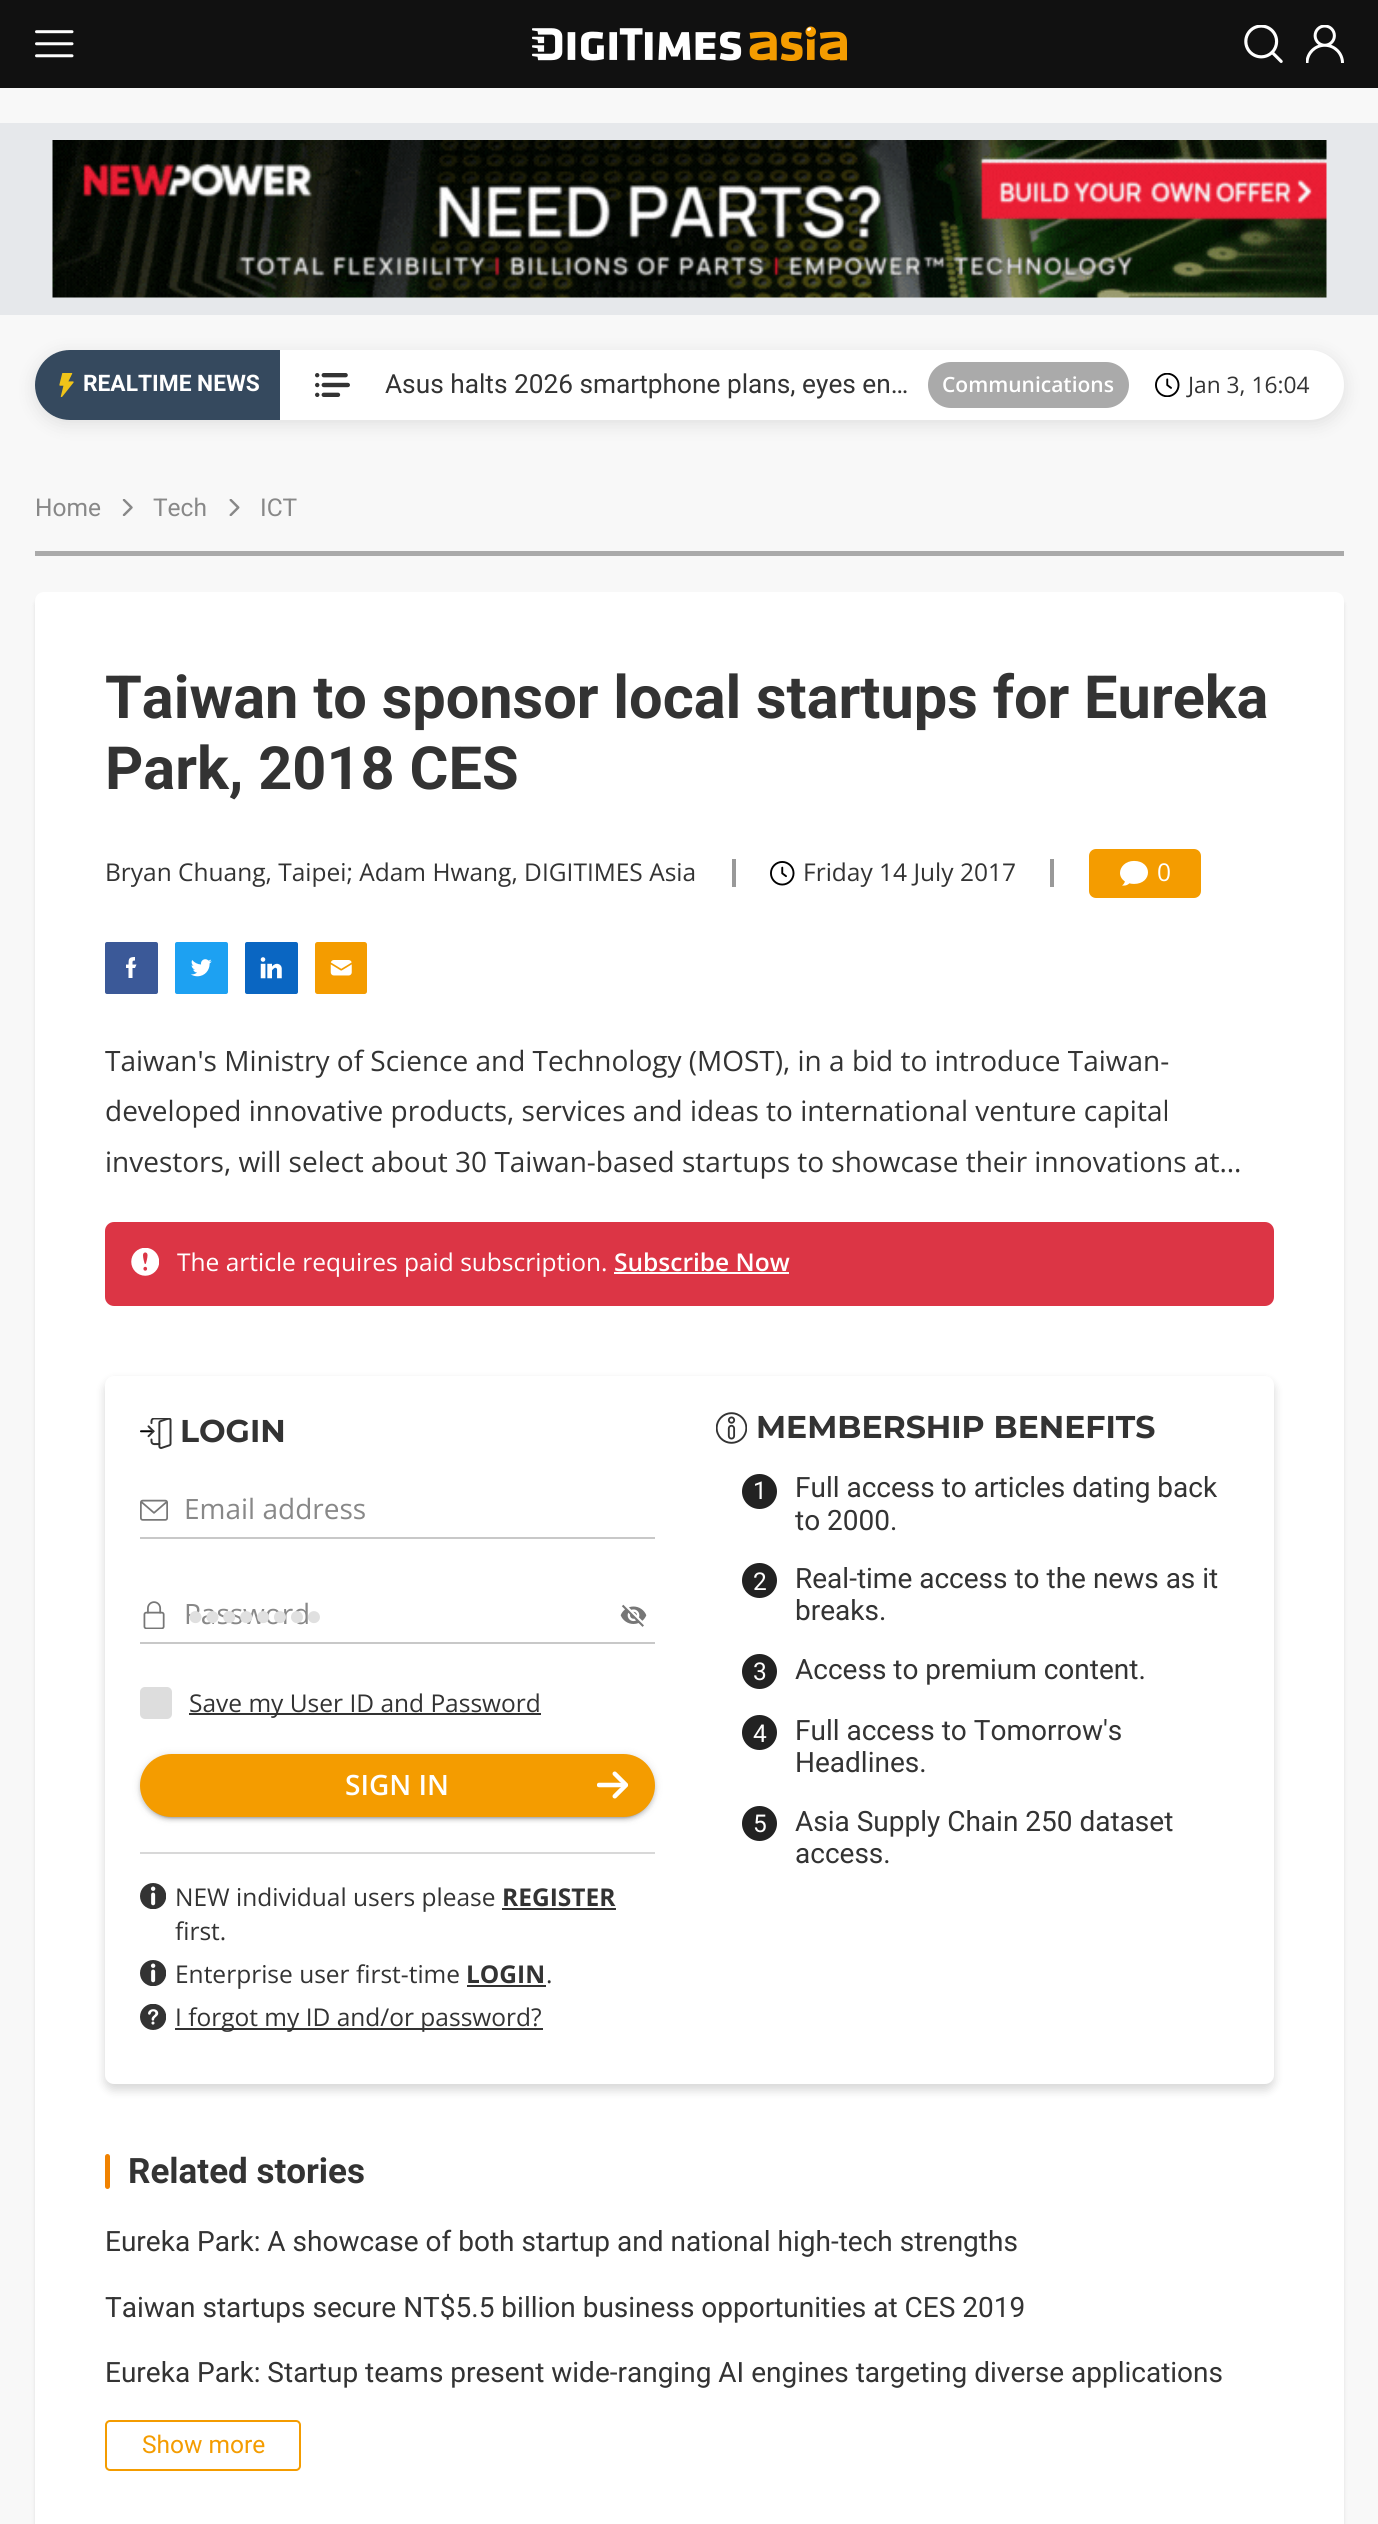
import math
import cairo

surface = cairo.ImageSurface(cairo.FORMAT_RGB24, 1378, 2524)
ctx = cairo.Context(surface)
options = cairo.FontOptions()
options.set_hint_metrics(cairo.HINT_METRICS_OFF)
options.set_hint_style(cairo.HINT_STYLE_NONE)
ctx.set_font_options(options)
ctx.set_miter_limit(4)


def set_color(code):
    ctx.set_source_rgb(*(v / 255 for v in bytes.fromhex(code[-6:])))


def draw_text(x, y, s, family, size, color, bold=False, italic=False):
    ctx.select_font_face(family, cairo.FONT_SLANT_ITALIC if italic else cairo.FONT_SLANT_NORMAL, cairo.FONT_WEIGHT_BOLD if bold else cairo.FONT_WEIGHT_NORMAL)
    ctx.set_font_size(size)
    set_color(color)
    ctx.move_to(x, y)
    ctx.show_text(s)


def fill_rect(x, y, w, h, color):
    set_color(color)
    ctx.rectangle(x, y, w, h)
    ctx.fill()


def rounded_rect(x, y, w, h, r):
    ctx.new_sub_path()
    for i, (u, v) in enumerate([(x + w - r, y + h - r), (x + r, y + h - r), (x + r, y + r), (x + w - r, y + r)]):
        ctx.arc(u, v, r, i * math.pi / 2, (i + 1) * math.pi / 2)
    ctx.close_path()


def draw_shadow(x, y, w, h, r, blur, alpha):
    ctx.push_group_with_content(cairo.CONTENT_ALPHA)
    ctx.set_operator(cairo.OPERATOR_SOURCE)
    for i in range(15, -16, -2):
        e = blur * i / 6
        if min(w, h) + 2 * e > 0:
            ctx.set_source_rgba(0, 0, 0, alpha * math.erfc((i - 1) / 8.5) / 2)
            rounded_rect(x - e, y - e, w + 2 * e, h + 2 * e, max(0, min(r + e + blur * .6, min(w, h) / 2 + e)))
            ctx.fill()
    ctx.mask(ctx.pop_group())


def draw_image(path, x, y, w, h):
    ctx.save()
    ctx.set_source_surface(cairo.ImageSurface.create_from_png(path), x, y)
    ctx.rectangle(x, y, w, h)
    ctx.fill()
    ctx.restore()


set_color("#f8f8f8")
ctx.paint()
fill_rect(0, 0, 1378, 88, "#111111")
draw_image("assets/img1.png", 35, 30, 39, 28)
draw_image("assets/img2.png", 532, 26, 315, 35)
draw_image("assets/img3.png", 1244, 25, 39, 38)
draw_image("assets/img4.png", 1306, 25, 38, 38)
fill_rect(0, 123, 1378, 192, "#e6e8eb")
draw_image("assets/img5.png", 52, 140, 1275, 158)
set_color("#000000")
draw_shadow(35, 354, 1309, 70, 35, 9, 0.1)
set_color("#ffffff")
rounded_rect(35, 350, 1309, 70, 35)
ctx.fill()
set_color("#35495e")
ctx.new_path()
ctx.move_to(70, 350)
ctx.line_to(280, 350)
ctx.line_to(280, 420)
ctx.line_to(70, 420)
ctx.curve_to(50.5, 420, 35, 404.5, 35, 385)
ctx.curve_to(35, 365.5, 50.5, 350, 70, 350)
ctx.close_path()
ctx.fill()
draw_image("assets/img6.png", 59, 373, 15, 24)
draw_text(83, 391, "REALTIME NEWS", "Roboto", 22.75, "#ffffff", bold=True)
draw_image("assets/img7.png", 315, 373, 35, 24)
draw_text(385, 393, "Asus halts 2026 smartphone plans, eyes en…", "Roboto", 26.25, "#333333")
set_color("#aaaaaa")
rounded_rect(928, 362, 201, 46, 23)
ctx.fill()
draw_text(942, 392, "Communications", "Open Sans SemiBold", 21, "#ffffff")
draw_image("assets/img8.png", 1155, 373, 25, 24)
draw_text(1188, 393, "Jan 3, 16:04", "Open Sans", 22.75, "#333333")
fill_rect(35, 551, 1309, 5, "#aaaaaa")
draw_text(35, 516, "Home", "Roboto", 24.5, "#888888")
draw_image("assets/img9.png", 122, 499, 11, 17)
draw_text(153, 516, "Tech", "Roboto", 24.5, "#888888")
draw_image("assets/img10.png", 229, 499, 11, 17)
draw_text(260, 516, "ICT", "Roboto", 24.5, "#888888")
set_color("#000000")
draw_shadow(35, 597, 1309, 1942, 9, 2, 0.1)
set_color("#ffffff")
rounded_rect(35, 592, 1309, 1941, 9)
ctx.fill()
draw_text(105, 718, "Taiwan to sponsor local startups for Eureka", "Roboto", 59.5, "#333333", bold=True)
draw_text(105, 789, "Park, 2018 CES", "Roboto", 59.5, "#333333", bold=True)
draw_text(105, 881, "Bryan Chuang, Taipei; Adam Hwang, DIGITIMES Asia", "Open Sans", 24.5, "#333333")
fill_rect(732, 859, 4, 28, "#999999")
draw_image("assets/img11.png", 770, 861, 25, 25)
draw_text(803, 881, "Friday 14 July 2017", "Open Sans", 24.5, "#333333")
fill_rect(1050, 859, 4, 28, "#999999")
set_color("#f49c00")
rounded_rect(1089, 849, 112, 49, 7)
ctx.fill()
draw_image("assets/img12.png", 1120, 860, 28, 26)
draw_text(1157, 881, "0", "Open Sans", 24.5, "#ffffff")
set_color("#3b5998")
rounded_rect(105, 942, 53, 52, 2)
ctx.fill()
set_color("#ffffff")
ctx.new_path()
ctx.move_to(132.5, 964.5)
ctx.curve_to(132.5, 961.5, 132, 960.5, 135, 960.5)
ctx.line_to(135, 957)
ctx.curve_to(129, 957, 128.5, 958.5, 128.5, 964.5)
ctx.line_to(126, 964.5)
ctx.line_to(126, 968)
ctx.line_to(128.5, 968)
ctx.line_to(128.5, 978)
ctx.line_to(132.5, 978)
ctx.line_to(132.5, 968)
ctx.line_to(135, 968)
ctx.line_to(136.5, 964.5)
ctx.close_path()
ctx.fill()
draw_image("assets/img13.png", 175, 942, 53, 52)
draw_image("assets/img14.png", 245, 942, 53, 52)
draw_image("assets/img15.png", 315, 942, 52, 52)
draw_text(105, 1071, "Taiwan's Ministry of Science and Technology (MOST), in a bid to introduce Taiwan-", "Open Sans", 28, "#333333")
draw_text(105, 1121, "developed innovative products, services and ideas to international venture capital", "Open Sans", 28, "#333333")
draw_text(105, 1172, "investors, will select about 30 Taiwan-based startups to showcase their innovations at...", "Open Sans", 28, "#333333")
set_color("#dc3545")
rounded_rect(105, 1222, 1169, 84, 9)
ctx.fill()
draw_image("assets/img16.png", 131, 1248, 28, 28)
draw_text(177, 1271, "The article requires paid subscription.", "Open Sans", 24.5, "#ffffff")
draw_text(614, 1271, "Subscribe Now", "Open Sans SemiBold", 24.5, "#ffffff")
fill_rect(614, 1272, 175, 2, "#ffffff")
set_color("#000000")
draw_shadow(105, 1381, 1169, 709, 9, 5, 0.16)
set_color("#ffffff")
rounded_rect(105, 1376, 1169, 708, 9)
ctx.fill()
draw_image("assets/img17.png", 140, 1418, 32, 31)
draw_text(180, 1442, "LOGIN", "Montserrat Thin", 31.5, "#333333")
draw_image("assets/img18.png", 140, 1499, 28, 22)
draw_text(184, 1519, "Email address", "Open Sans", 28, "#888888")
fill_rect(140, 1537, 515, 2, "#c8c8c8")
draw_image("assets/img19.png", 143, 1601, 22, 28)
draw_text(184, 1624, "Password", "Open Sans", 28, "#888888")
draw_image("assets/img20.png", 620, 1604, 27, 23)
draw_text(187, 1625, "●●●●●●●●", "Liberation Sans", 28, "#e0e0e0")
fill_rect(140, 1642, 515, 2, "#c8c8c8")
set_color("#dddddd")
rounded_rect(140, 1687, 32, 32, 5)
ctx.fill()
fill_rect(189, 1713, 352, 2, "#333333")
draw_text(189, 1712, "Save my User ID and Password", "Open Sans", 24.5, "#333333")
set_color("#000000")
draw_shadow(140, 1755, 515, 63, 31.5, 4.5, 0.12)
draw_shadow(140, 1757, 515, 63, 31.5, 2, 0.14)
draw_shadow(144, 1762, 507, 56, 28, 1, 0.2)
set_color("#f49c00")
rounded_rect(140, 1754, 515, 63, 31.5)
ctx.fill()
draw_text(345, 1795, "SIGN IN", "Open Sans SemiBold", 28, "#ffffff")
draw_image("assets/img21.png", 597, 1771, 31, 28)
fill_rect(140, 1852, 515, 2, "#d8d8d8")
draw_image("assets/img22.png", 140, 1883, 26, 26)
draw_text(175, 1906, "NEW individual users please", "Open Sans", 24.5, "#333333")
draw_text(502, 1906, "REGISTER", "Open Sans", 24.5, "#333333", bold=True)
fill_rect(502, 1908, 114, 2, "#333333")
draw_text(175, 1940, "first.", "Open Sans", 24.5, "#333333")
draw_image("assets/img22.png", 140, 1960, 26, 26)
draw_text(175, 1983, "Enterprise user first-time", "Open Sans", 24.5, "#333333")
draw_text(466, 1983, "LOGIN", "Open Sans", 24.5, "#333333", bold=True)
fill_rect(467, 1985, 79, 2, "#333333")
draw_text(546, 1983, ".", "Open Sans", 24.5, "#333333")
draw_image("assets/img23.png", 140, 2004, 26, 26)
fill_rect(175, 2028, 368, 2, "#333333")
draw_text(175, 2026, "I forgot my ID and/or password?", "Open Sans", 24.5, "#333333")
draw_image("assets/img24.png", 716, 1412, 31, 32)
draw_text(756, 1438, "MEMBERSHIP BENEFITS", "Montserrat Thin", 31.5, "#333333")
set_color("#222222")
ctx.new_path()
ctx.arc(759.5, 1491.5, 17.5, 0, 2 * math.pi)
ctx.fill()
draw_text(753, 1499, "1", "Roboto", 24.5, "#ffffff")
draw_text(795, 1497, "Full access to articles dating back", "Roboto", 28, "#333333")
draw_text(795, 1530, "to 2000.", "Roboto", 28, "#333333")
set_color("#222222")
ctx.new_path()
ctx.arc(759.5, 1580.5, 17.5, 0, 2 * math.pi)
ctx.fill()
draw_text(753, 1590, "2", "Roboto", 24.5, "#ffffff")
draw_text(795, 1588, "Real-time access to the news as it", "Roboto", 28, "#333333")
draw_text(795, 1620, "breaks.", "Roboto", 28, "#333333")
set_color("#222222")
ctx.new_path()
ctx.arc(759.5, 1671.5, 17.5, 0, 2 * math.pi)
ctx.fill()
draw_text(753, 1680, "3", "Roboto", 24.5, "#ffffff")
draw_text(795, 1679, "Access to premium content.", "Roboto", 28, "#333333")
set_color("#222222")
ctx.new_path()
ctx.arc(759.5, 1732.5, 17.5, 0, 2 * math.pi)
ctx.fill()
draw_text(753, 1742, "4", "Roboto", 24.5, "#ffffff")
draw_text(795, 1740, "Full access to Tomorrow's", "Roboto", 28, "#333333")
draw_text(795, 1772, "Headlines.", "Roboto", 28, "#333333")
set_color("#222222")
ctx.new_path()
ctx.arc(759.5, 1823.5, 17.5, 0, 2 * math.pi)
ctx.fill()
draw_text(753, 1832, "5", "Roboto", 24.5, "#ffffff")
draw_text(795, 1831, "Asia Supply Chain 250 dataset", "Roboto", 28, "#333333")
draw_text(795, 1863, "access.", "Roboto", 28, "#333333")
set_color("#f08200")
rounded_rect(105, 2154, 5, 35, 2.5)
ctx.fill()
draw_text(128, 2183, "Related stories", "Roboto", 35, "#333333", bold=True)
draw_text(105, 2251, "Eureka Park: A showcase of both startup and national high-tech strengths", "Roboto", 28, "#333333")
draw_text(105, 2317, "Taiwan startups secure NT$5.5 billion business opportunities at CES 2019", "Roboto", 28, "#333333")
draw_text(105, 2382, "Eureka Park: Startup teams present wide-ranging AI engines targeting diverse applications", "Roboto", 28, "#333333")
rounded_rect(106, 2421, 194, 49, 4)
set_color("#f49c00")
ctx.stroke()
draw_text(142, 2453, "Show more", "Roboto", 24.5, "#f49c00")
surface.write_to_png("output.png")
